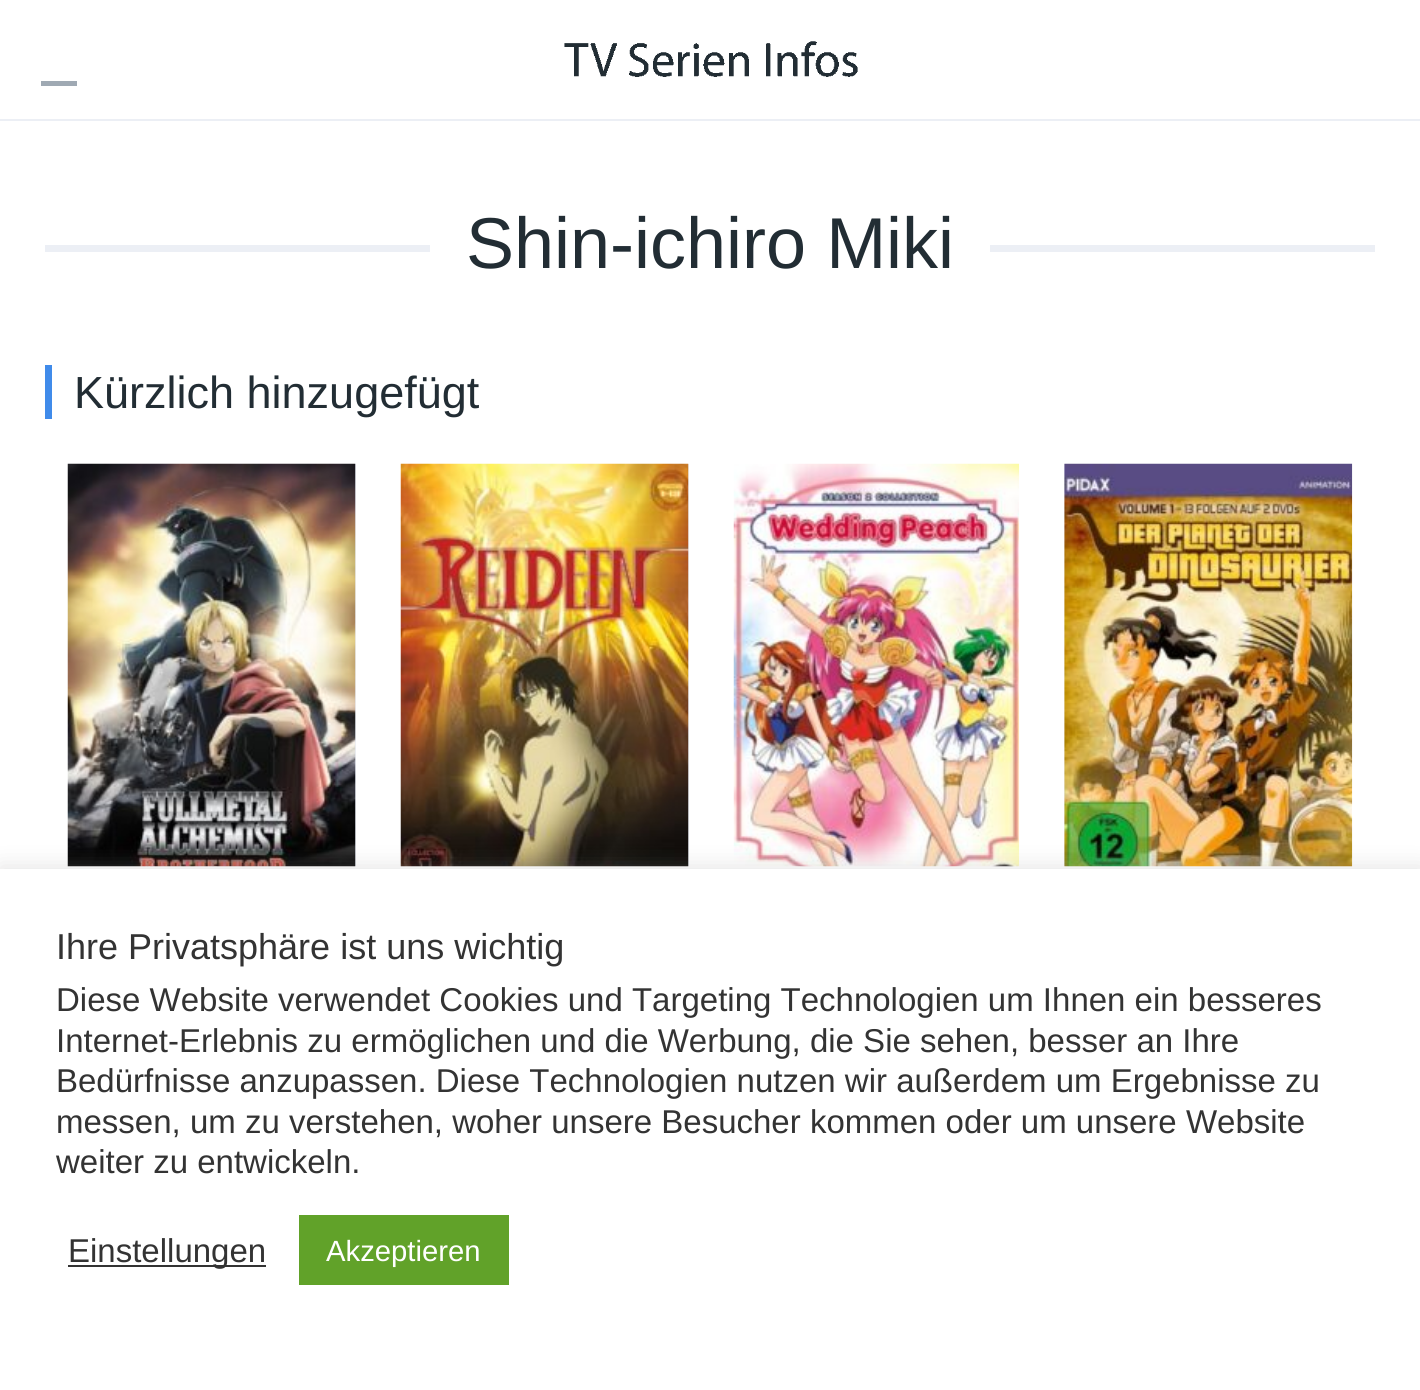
import math
import cairo

surface = cairo.ImageSurface(cairo.FORMAT_RGB24, 1420, 1390)
ctx = cairo.Context(surface)
options = cairo.FontOptions()
options.set_hint_metrics(cairo.HINT_METRICS_OFF)
options.set_hint_style(cairo.HINT_STYLE_NONE)
ctx.set_font_options(options)
ctx.set_miter_limit(4)


def set_color(code):
    ctx.set_source_rgb(*(v / 255 for v in bytes.fromhex(code[-6:])))


def draw_text(x, y, s, family, size, color, bold=False, italic=False):
    ctx.select_font_face(family, cairo.FONT_SLANT_ITALIC if italic else cairo.FONT_SLANT_NORMAL, cairo.FONT_WEIGHT_BOLD if bold else cairo.FONT_WEIGHT_NORMAL)
    ctx.set_font_size(size)
    set_color(color)
    ctx.move_to(x, y)
    ctx.show_text(s)


def fill_rect(x, y, w, h, color):
    set_color(color)
    ctx.rectangle(x, y, w, h)
    ctx.fill()


def rounded_rect(x, y, w, h, r):
    ctx.new_sub_path()
    for i, (u, v) in enumerate([(x + w - r, y + h - r), (x + r, y + h - r), (x + r, y + r), (x + w - r, y + r)]):
        ctx.arc(u, v, r, i * math.pi / 2, (i + 1) * math.pi / 2)
    ctx.close_path()


def draw_shadow(x, y, w, h, r, blur, alpha):
    ctx.push_group_with_content(cairo.CONTENT_ALPHA)
    ctx.set_operator(cairo.OPERATOR_SOURCE)
    for i in range(15, -16, -2):
        e = blur * i / 6
        if min(w, h) + 2 * e > 0:
            ctx.set_source_rgba(0, 0, 0, alpha * math.erfc((i - 1) / 8.5) / 2)
            rounded_rect(x - e, y - e, w + 2 * e, h + 2 * e, max(0, min(r + e + blur * .6, min(w, h) / 2 + e)))
            ctx.fill()
    ctx.mask(ctx.pop_group())


def draw_image(path, x, y, w, h):
    ctx.save()
    ctx.set_source_surface(cairo.ImageSurface.create_from_png(path), x, y)
    ctx.rectangle(x, y, w, h)
    ctx.fill()
    ctx.restore()


set_color("#ffffff")
ctx.paint()
draw_image("assets/img1.png", 564, 41, 294, 36)
fill_rect(41, 81, 36, 5, "#9fa9b3")
fill_rect(0, 119, 1420, 2, "#eceff5")
fill_rect(45, 245, 385, 7, "#eceff5")
draw_text(466, 268, "Shin-ichiro Miki", "Liberation Sans", 72, "#222d34")
fill_rect(990, 245, 385, 7, "#eceff5")
fill_rect(45, 365, 7, 54, "#408bea")
draw_text(74, 408, "Kürzlich hinzugefügt", "Liberation Sans", 45, "#222d34")
fill_rect(355, 464, 1, 402, "#eceff5")
draw_image("assets/img2.png", 67, 463, 289, 404)
fill_rect(688, 464, 1, 402, "#eceff5")
draw_image("assets/img3.png", 400, 463, 289, 404)
draw_image("assets/img4.png", 733, 463, 287, 404)
fill_rect(1064, 464, 1, 402, "#eceff5")
draw_image("assets/img5.png", 1064, 463, 289, 404)
set_color("#acabab")
draw_shadow(0, 866, 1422, 522, 0, 11, 0.3)
fill_rect(0, 869, 1420, 521, "#ffffff")
draw_text(56, 959, "Ihre Privatsphäre ist uns wichtig", "Liberation Sans", 36, "#333333")
draw_text(56, 1011, "Diese Website verwendet Cookies und Targeting Technologien um Ihnen ein besseres", "Liberation Sans", 33, "#333333")
draw_text(56, 1052, "Internet-Erlebnis zu ermöglichen und die Werbung, die Sie sehen, besser an Ihre", "Liberation Sans", 33, "#333333")
draw_text(56, 1092, "Bedürfnisse anzupassen. Diese Technologien nutzen wir außerdem um Ergebnisse zu", "Liberation Sans", 33, "#333333")
draw_text(56, 1133, "messen, um zu verstehen, woher unsere Besucher kommen oder um unsere Website", "Liberation Sans", 33, "#333333")
draw_text(56, 1173, "weiter zu entwickeln.", "Liberation Sans", 33, "#333333")
fill_rect(68, 1265, 198, 2, "#333333")
draw_text(68, 1262, "Einstellungen", "Liberation Sans", 33, "#333333")
fill_rect(299, 1215, 210, 70, "#61a229")
draw_text(326, 1261, "Akzeptieren", "Liberation Sans", 29.25, "#ffffff")
surface.write_to_png("output.png")
